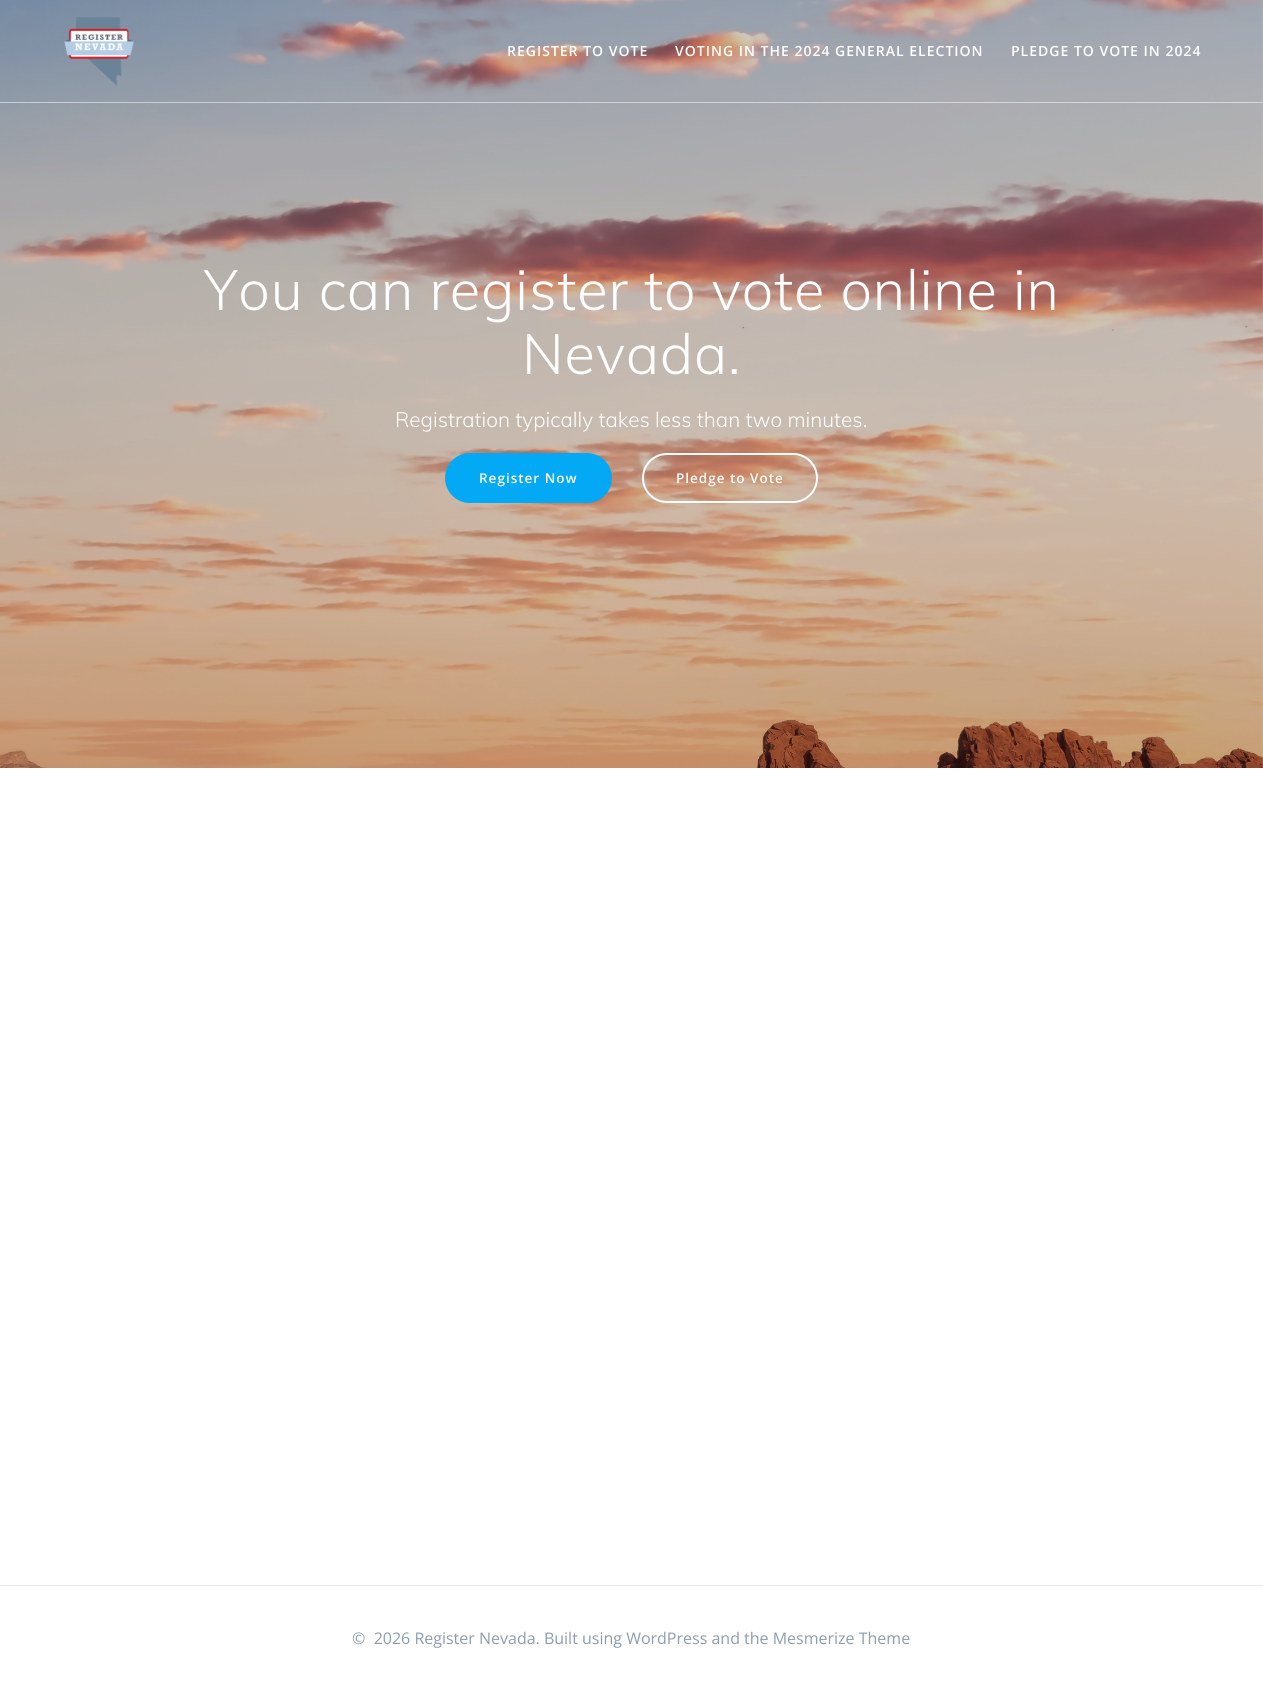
import math
import cairo

surface = cairo.ImageSurface(cairo.FORMAT_RGB24, 1263, 1689)
ctx = cairo.Context(surface)
options = cairo.FontOptions()
options.set_hint_metrics(cairo.HINT_METRICS_OFF)
options.set_hint_style(cairo.HINT_STYLE_NONE)
ctx.set_font_options(options)
ctx.set_miter_limit(4)


def set_color(code):
    ctx.set_source_rgb(*(v / 255 for v in bytes.fromhex(code[-6:])))


def draw_text(x, y, s, family, size, color, bold=False, italic=False):
    ctx.select_font_face(family, cairo.FONT_SLANT_ITALIC if italic else cairo.FONT_SLANT_NORMAL, cairo.FONT_WEIGHT_BOLD if bold else cairo.FONT_WEIGHT_NORMAL)
    ctx.set_font_size(size)
    set_color(color)
    ctx.move_to(x, y)
    ctx.show_text(s)


def draw_spaced(x, y, s, letter, word):
    ctx.move_to(x, y)
    for ch in s:
        ctx.show_text(ch)
        ctx.rel_move_to(letter + word * (ch == ' '), 0)


def fill_rect(x, y, w, h, color):
    set_color(color)
    ctx.rectangle(x, y, w, h)
    ctx.fill()


def rounded_rect(x, y, w, h, r):
    ctx.new_sub_path()
    for i, (u, v) in enumerate([(x + w - r, y + h - r), (x + r, y + h - r), (x + r, y + r), (x + w - r, y + r)]):
        ctx.arc(u, v, r, i * math.pi / 2, (i + 1) * math.pi / 2)
    ctx.close_path()


def draw_image(path, x, y, w, h):
    ctx.save()
    ctx.set_source_surface(cairo.ImageSurface.create_from_png(path), x, y)
    ctx.rectangle(x, y, w, h)
    ctx.fill()
    ctx.restore()


set_color("#ffffff")
ctx.paint()
draw_image("assets/img2.png", 0, 0, 1263, 768)
ctx.set_source_rgba(1, 1, 1, 0.5)
ctx.rectangle(0, 102, 1263, 1)
ctx.fill()
draw_image("assets/img1.png", 64, 17, 70, 69)
ctx.select_font_face("Open Sans SemiBold")
ctx.set_font_size(14)
set_color("#ffffff")
draw_spaced(507, 56, "REGISTER TO VOTE", 1, 0)
draw_spaced(675, 56, "VOTING IN THE 2024 GENERAL ELECTION", 1, 0)
draw_spaced(1011, 56, "PLEDGE TO VOTE IN 2024", 1, 0)
ctx.select_font_face("Muli Light")
ctx.set_font_size(56)
draw_spaced(204, 310, "You can register to vote online in", 0.9, 0)
draw_spaced(522, 374, "Nevada.", 0.9, 0)
draw_text(395, 427, "Registration typically takes less than two minutes.", "Muli Light", 20.8, "#ffffff")
set_color("#03a9f4")
rounded_rect(446, 454, 165, 48, 24)
ctx.fill_preserve()
ctx.stroke()
ctx.select_font_face("Open Sans SemiBold")
ctx.set_font_size(13.5)
set_color("#ffffff")
draw_spaced(479, 483, "Register Now", 1, 0)
rounded_rect(643, 454, 174, 48, 24)
ctx.stroke()
draw_spaced(676, 483, "Pledge to Vote", 1, 0)
fill_rect(0, 1585, 1263, 1, "#e8e8e8")
draw_text(352, 1644, "©  2026 Register Nevada. Built using WordPress and the Mesmerize Theme", "Open Sans", 16, "#8e9dae")
surface.write_to_png("output.png")
